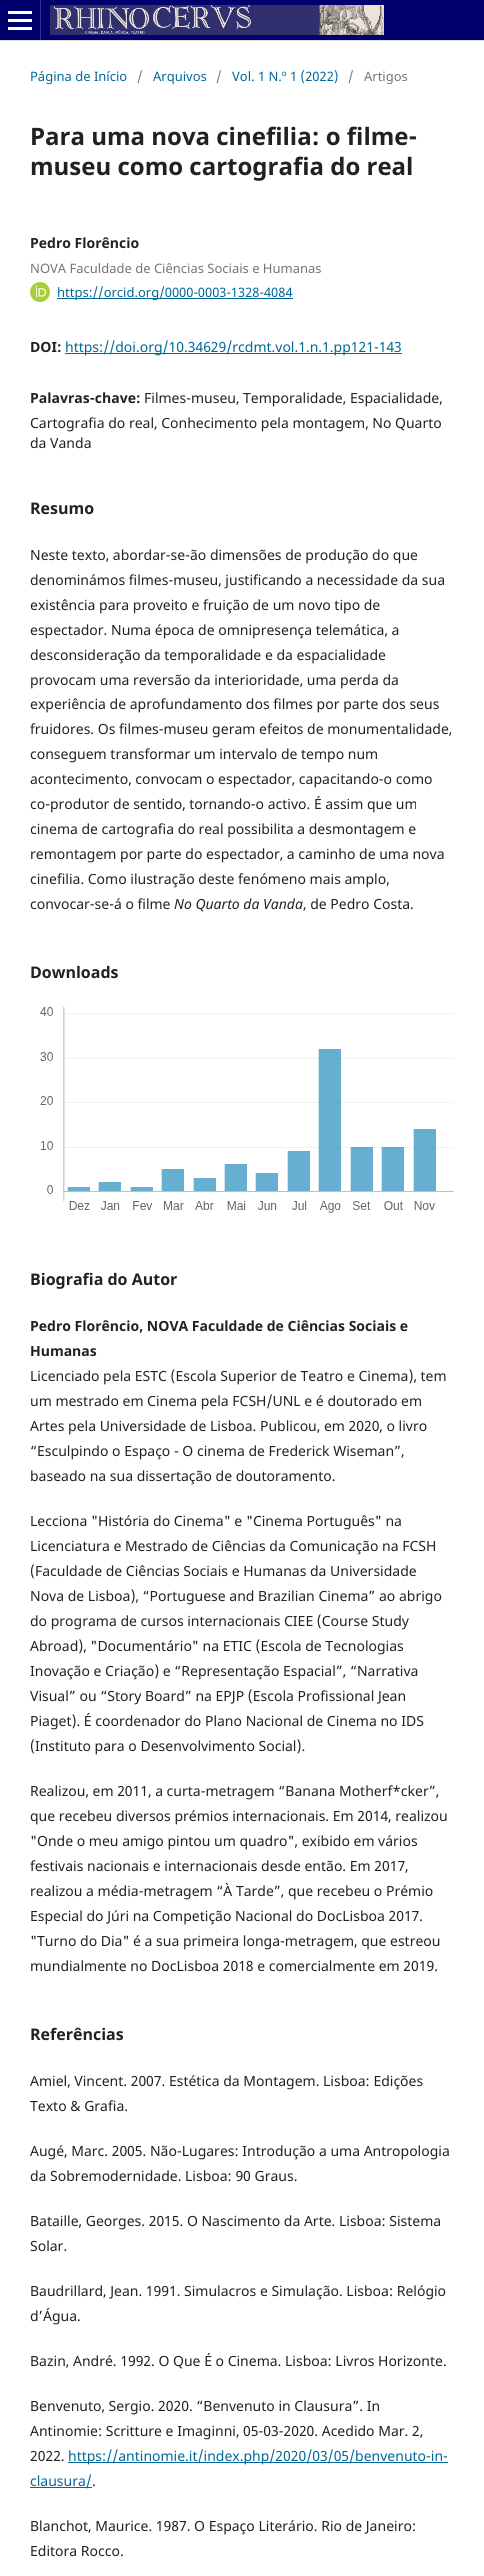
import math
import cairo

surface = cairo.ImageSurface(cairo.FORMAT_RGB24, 484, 2576)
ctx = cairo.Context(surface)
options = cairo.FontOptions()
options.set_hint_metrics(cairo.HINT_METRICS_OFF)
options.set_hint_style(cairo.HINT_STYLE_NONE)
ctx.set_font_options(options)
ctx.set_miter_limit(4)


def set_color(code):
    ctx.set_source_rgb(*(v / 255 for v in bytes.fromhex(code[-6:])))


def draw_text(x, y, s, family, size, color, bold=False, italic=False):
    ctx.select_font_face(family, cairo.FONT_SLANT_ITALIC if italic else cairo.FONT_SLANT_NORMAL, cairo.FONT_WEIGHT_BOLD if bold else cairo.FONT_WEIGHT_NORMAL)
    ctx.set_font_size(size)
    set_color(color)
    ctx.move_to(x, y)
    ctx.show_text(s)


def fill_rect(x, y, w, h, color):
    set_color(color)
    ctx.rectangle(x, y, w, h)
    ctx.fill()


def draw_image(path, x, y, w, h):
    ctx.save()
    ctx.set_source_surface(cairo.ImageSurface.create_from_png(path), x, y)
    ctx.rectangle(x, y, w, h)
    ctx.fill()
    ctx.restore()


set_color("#ffffff")
ctx.paint()
fill_rect(0, 0, 484, 40, "#00006f")
fill_rect(0, 40, 484, 1, "#dddddd")
fill_rect(40, 0, 1, 40, "#33338c")
fill_rect(8, 27, 24, 3, "#ffffff")
fill_rect(8, 11, 24, 3, "#ffffff")
fill_rect(8, 19, 24, 3, "#ffffff")
draw_image("assets/img1.png", 50, 5, 334, 30)
draw_text(30, 81, "Página de Início", "Noto Sans", 13, "#006798")
draw_text(137, 81, "/", "Noto Sans", 13, "#757575")
draw_text(153, 81, "Arquivos", "Noto Sans", 13, "#006798")
draw_text(216, 81, "/", "Noto Sans", 13, "#757575")
draw_text(232, 81, "Vol. 1 N.º 1 (2022)", "Noto Sans", 13, "#006798")
draw_text(348, 81, "/", "Noto Sans", 13, "#757575")
draw_text(364, 81, "Artigos", "Noto Sans", 13, "#757575")
draw_text(30, 145, "Para uma nova cinefilia: o filme-", "Noto Sans", 24, "#212121", bold=True)
draw_text(30, 175, "museu como cartografia do real", "Noto Sans", 24, "#212121", bold=True)
draw_text(30, 248, "Pedro Florêncio", "Noto Sans", 14, "#212121", bold=True)
draw_text(30, 273, "NOVA Faculdade de Ciências Sociais e Humanas", "Noto Sans", 13, "#757575")
draw_image("assets/img2.png", 30, 282, 20, 20)
fill_rect(57, 298, 236, 1, "#006798")
draw_text(57, 297, "https://orcid.org/0000-0003-1328-4084", "Noto Sans", 13, "#006798")
draw_text(30, 352, "DOI:", "Noto Sans", 14, "#212121", bold=True)
fill_rect(65, 353, 337, 1, "#006798")
draw_text(65, 352, "https://doi.org/10.34629/rcdmt.vol.1.n.1.pp121-143", "Noto Sans", 14, "#006798")
draw_text(30, 403, "Palavras-chave:", "Noto Sans", 14, "#212121", bold=True)
draw_text(144, 403, "Filmes-museu, Temporalidade, Espacialidade,", "Noto Sans", 14, "#212121")
draw_text(30, 428, "Cartografia do real, Conhecimento pela montagem, No Quarto", "Noto Sans", 14, "#212121")
draw_text(30, 448, "da Vanda", "Noto Sans", 14, "#212121")
draw_text(30, 514, "Resumo", "Noto Sans", 16, "#212121", bold=True)
draw_text(30, 560, "Neste texto, abordar-se-ão dimensões de produção do que", "Noto Sans", 14, "#212121")
draw_text(30, 585, "denominámos filmes-museu, justificando a necessidade da sua", "Noto Sans", 14, "#212121")
draw_text(30, 610, "existência para proveito e fruição de um novo tipo de", "Noto Sans", 14, "#212121")
draw_text(30, 635, "espectador. Numa época de omnipresença telemática, a", "Noto Sans", 14, "#212121")
draw_text(30, 660, "desconsideração da temporalidade e da espacialidade", "Noto Sans", 14, "#212121")
draw_text(30, 685, "provocam uma reversão da interioridade, uma perda da", "Noto Sans", 14, "#212121")
draw_text(30, 709, "experiência de aprofundamento dos filmes por parte dos seus", "Noto Sans", 14, "#212121")
draw_text(30, 734, "fruidores. Os filmes-museu geram efeitos de monumentalidade,", "Noto Sans", 14, "#212121")
draw_text(30, 759, "conseguem transformar um intervalo de tempo num", "Noto Sans", 14, "#212121")
draw_text(30, 784, "acontecimento, convocam o espectador, capacitando-o como", "Noto Sans", 14, "#212121")
draw_text(30, 809, "co-produtor de sentido, tornando-o activo. É assim que um", "Noto Sans", 14, "#212121")
draw_text(30, 834, "cinema de cartografia do real possibilita a desmontagem e", "Noto Sans", 14, "#212121")
draw_text(30, 859, "remontagem por parte do espectador, a caminho de uma nova", "Noto Sans", 14, "#212121")
draw_text(30, 884, "cinefilia. Como ilustração deste fenómeno mais amplo,", "Noto Sans", 14, "#212121")
draw_text(30, 909, "convocar-se-á o filme", "Noto Sans", 14, "#212121")
draw_text(174, 909, "No Quarto da Vanda", "Noto Sans", 14, "#212121", italic=True)
draw_text(303, 909, ", de Pedro Costa.", "Noto Sans", 14, "#212121")
draw_text(30, 978, "Downloads", "Noto Sans", 16, "#212121", bold=True)
draw_image("assets/img3.png", 40, 1007, 414, 206)
draw_text(30, 1285, "Biografia do Autor", "Noto Sans", 16, "#212121", bold=True)
draw_text(30, 1331, "Pedro Florêncio, NOVA Faculdade de Ciências Sociais e", "Noto Sans", 14, "#212121", bold=True)
draw_text(30, 1356, "Humanas", "Noto Sans", 14, "#212121", bold=True)
draw_text(30, 1381, "Licenciado pela ESTC (Escola Superior de Teatro e Cinema), tem", "Noto Sans", 14, "#212121")
draw_text(30, 1406, "um mestrado em Cinema pela FCSH/UNL e é doutorado em", "Noto Sans", 14, "#212121")
draw_text(30, 1431, "Artes pela Universidade de Lisboa. Publicou, em 2020, o livro", "Noto Sans", 14, "#212121")
draw_text(30, 1456, "“Esculpindo o Espaço - O cinema de Frederick Wiseman”,", "Noto Sans", 14, "#212121")
draw_text(30, 1481, "baseado na sua dissertação de doutoramento.", "Noto Sans", 14, "#212121")
draw_text(30, 1526, "Lecciona \"História do Cinema\" e \"Cinema Português\" na", "Noto Sans", 14, "#212121")
draw_text(30, 1551, "Licenciatura e Mestrado de Ciências da Comunicação na FCSH", "Noto Sans", 14, "#212121")
draw_text(30, 1576, "(Faculdade de Ciências Sociais e Humanas da Universidade", "Noto Sans", 14, "#212121")
draw_text(30, 1601, "Nova de Lisboa), “Portuguese and Brazilian Cinema” ao abrigo", "Noto Sans", 14, "#212121")
draw_text(30, 1626, "do programa de cursos internacionais CIEE (Course Study", "Noto Sans", 14, "#212121")
draw_text(30, 1651, "Abroad), \"Documentário\" na ETIC (Escola de Tecnologias", "Noto Sans", 14, "#212121")
draw_text(30, 1676, "Inovação e Criação) e “Representação Espacial”, “Narrativa", "Noto Sans", 14, "#212121")
draw_text(30, 1701, "Visual” ou “Story Board” na EPJP (Escola Profissional Jean", "Noto Sans", 14, "#212121")
draw_text(30, 1726, "Piaget). É coordenador do Plano Nacional de Cinema no IDS", "Noto Sans", 14, "#212121")
draw_text(30, 1751, "(Instituto para o Desenvolvimento Social).", "Noto Sans", 14, "#212121")
draw_text(30, 1796, "Realizou, em 2011, a curta-metragem “Banana Motherf*cker”,", "Noto Sans", 14, "#212121")
draw_text(30, 1821, "que recebeu diversos prémios internacionais. Em 2014, realizou", "Noto Sans", 14, "#212121")
draw_text(30, 1846, "\"Onde o meu amigo pintou um quadro\", exibido em vários", "Noto Sans", 14, "#212121")
draw_text(30, 1871, "festivais nacionais e internacionais desde então. Em 2017,", "Noto Sans", 14, "#212121")
draw_text(30, 1896, "realizou a média-metragem “À Tarde”, que recebeu o Prémio", "Noto Sans", 14, "#212121")
draw_text(30, 1921, "Especial do Júri na Competição Nacional do DocLisboa 2017.", "Noto Sans", 14, "#212121")
draw_text(30, 1946, "\"Turno do Dia\" é a sua primeira longa-metragem, que estreou", "Noto Sans", 14, "#212121")
draw_text(30, 1971, "mundialmente no DocLisboa 2018 e comercialmente em 2019.", "Noto Sans", 14, "#212121")
draw_text(30, 2040, "Referências", "Noto Sans", 16, "#212121", bold=True)
draw_text(30, 2086, "Amiel, Vincent. 2007. Estética da Montagem. Lisboa: Edições", "Noto Sans", 14, "#212121")
draw_text(30, 2111, "Texto & Grafia.", "Noto Sans", 14, "#212121")
draw_text(30, 2156, "Augé, Marc. 2005. Não-Lugares: Introdução a uma Antropologia", "Noto Sans", 14, "#212121")
draw_text(30, 2181, "da Sobremodernidade. Lisboa: 90 Graus.", "Noto Sans", 14, "#212121")
draw_text(30, 2226, "Bataille, Georges. 2015. O Nascimento da Arte. Lisboa: Sistema", "Noto Sans", 14, "#212121")
draw_text(30, 2251, "Solar.", "Noto Sans", 14, "#212121")
draw_text(30, 2296, "Baudrillard, Jean. 1991. Simulacros e Simulação. Lisboa: Relógio", "Noto Sans", 14, "#212121")
draw_text(30, 2321, "d’Água.", "Noto Sans", 14, "#212121")
draw_text(30, 2366, "Bazin, André. 1992. O Que É o Cinema. Lisboa: Livros Horizonte.", "Noto Sans", 14, "#212121")
draw_text(30, 2411, "Benvenuto, Sergio. 2020. “Benvenuto in Clausura”. In", "Noto Sans", 14, "#212121")
draw_text(30, 2436, "Antinomie: Scritture e Imaginni, 05-03-2020. Acedido Mar. 2,", "Noto Sans", 14, "#212121")
draw_text(30, 2461, "2022.", "Noto Sans", 14, "#212121")
fill_rect(68, 2462, 380, 1, "#006798")
draw_text(68, 2461, "https://antinomie.it/index.php/2020/03/05/benvenuto-in-", "Noto Sans", 14, "#006798")
fill_rect(30, 2487, 62, 1, "#006798")
draw_text(30, 2486, "clausura/", "Noto Sans", 14, "#006798")
draw_text(92, 2486, ".", "Noto Sans", 14, "#212121")
draw_text(30, 2531, "Blanchot, Maurice. 1987. O Espaço Literário. Rio de Janeiro:", "Noto Sans", 14, "#212121")
draw_text(30, 2556, "Editora Rocco.", "Noto Sans", 14, "#212121")
surface.write_to_png("output.png")
